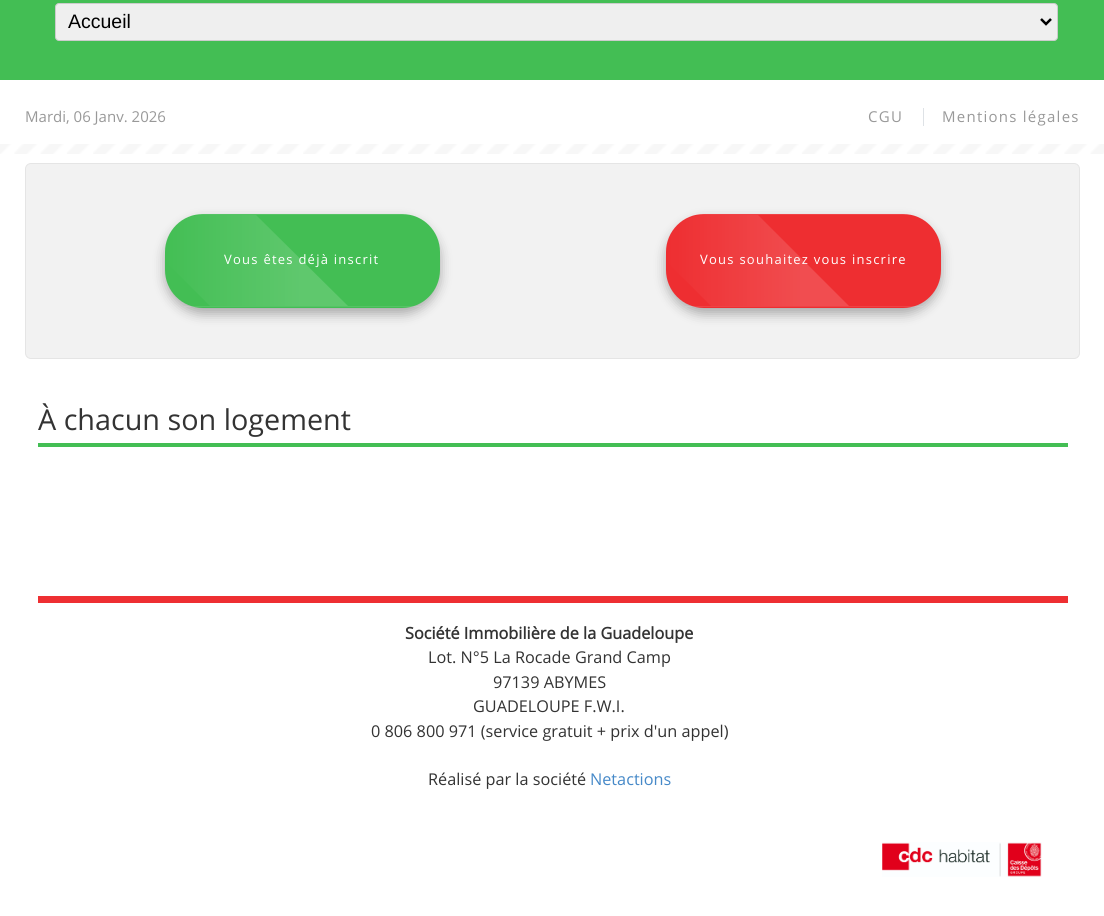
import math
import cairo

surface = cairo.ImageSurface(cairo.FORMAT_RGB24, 1104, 916)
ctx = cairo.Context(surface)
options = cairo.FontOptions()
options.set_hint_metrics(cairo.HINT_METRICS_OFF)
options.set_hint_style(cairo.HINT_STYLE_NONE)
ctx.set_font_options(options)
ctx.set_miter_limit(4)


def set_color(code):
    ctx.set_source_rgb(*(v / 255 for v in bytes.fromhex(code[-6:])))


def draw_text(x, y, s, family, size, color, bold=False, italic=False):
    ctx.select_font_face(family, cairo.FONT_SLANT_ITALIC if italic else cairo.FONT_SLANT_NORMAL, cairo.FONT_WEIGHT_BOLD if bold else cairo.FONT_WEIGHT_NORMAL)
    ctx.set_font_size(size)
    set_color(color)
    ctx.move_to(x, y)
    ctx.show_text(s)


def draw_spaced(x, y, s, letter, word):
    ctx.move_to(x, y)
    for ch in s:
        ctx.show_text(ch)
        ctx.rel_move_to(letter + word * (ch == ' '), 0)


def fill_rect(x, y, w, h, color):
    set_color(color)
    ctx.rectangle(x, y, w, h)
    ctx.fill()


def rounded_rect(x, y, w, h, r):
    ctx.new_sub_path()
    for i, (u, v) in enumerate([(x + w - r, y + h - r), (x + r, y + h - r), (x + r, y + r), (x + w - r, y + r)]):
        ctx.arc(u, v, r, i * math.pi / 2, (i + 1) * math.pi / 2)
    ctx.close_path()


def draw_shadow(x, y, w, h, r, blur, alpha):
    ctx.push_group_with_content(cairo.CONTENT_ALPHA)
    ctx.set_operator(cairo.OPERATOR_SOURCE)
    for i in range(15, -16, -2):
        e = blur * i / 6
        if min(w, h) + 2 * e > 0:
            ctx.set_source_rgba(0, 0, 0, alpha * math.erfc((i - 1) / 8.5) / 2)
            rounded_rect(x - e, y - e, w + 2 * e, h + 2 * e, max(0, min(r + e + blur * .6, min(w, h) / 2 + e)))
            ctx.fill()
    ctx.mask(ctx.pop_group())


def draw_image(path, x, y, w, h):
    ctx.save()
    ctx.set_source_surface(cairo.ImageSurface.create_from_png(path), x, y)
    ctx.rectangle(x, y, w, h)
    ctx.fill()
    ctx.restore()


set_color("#ffffff")
ctx.paint()
fill_rect(0, 0, 1104, 80, "#43be54")
set_color("#efefef")
rounded_rect(55.5, 3.5, 1002, 37, 3.5)
ctx.fill_preserve()
set_color("#cccccc")
ctx.set_line_width(1)
ctx.stroke()
ctx.new_path()
ctx.move_to(1041, 19)
ctx.line_to(1046, 24)
ctx.line_to(1051, 19)
set_color("#000000")
ctx.set_line_width(2.5)
ctx.stroke()
draw_text(68, 28, "Accueil", "Liberation Sans", 19.5, "#000000")
draw_image("assets/img1.png", 0, 144, 1104, 10)
draw_text(25, 122, "Mardi, 06 Janv. 2026", "Open Sans", 15, "#999999")
fill_rect(923, 108, 1, 18, "#dee2e6")
set_color("#999999")
draw_spaced(868, 122, "CGU", 1.25, 0)
draw_spaced(942, 122, "Mentions légales", 1.25, 0)
set_color("#f2f2f2")
rounded_rect(25.5, 163.5, 1054, 195, 5.5)
ctx.fill_preserve()
set_color("#e5e5e5")
ctx.set_line_width(1)
ctx.stroke()
set_color("#000000")
draw_shadow(165, 220, 275, 94, 38, 6, 0.3)
set_color("#43be54")
rounded_rect(165, 214, 275, 94, 38)
ctx.fill()
ctx.set_source_rgba(1, 1, 1, 0.1)
ctx.rectangle(194, 214, 217, 1)
ctx.fill()
ctx.rectangle(184, 306, 237, 1)
ctx.fill()
gradient = cairo.LinearGradient(302, 260, 164, 260)
gradient.add_color_stop_rgba(0, 1, 1, 1, 0.15)
gradient.add_color_stop_rgba(1, 1, 1, 1, 0)
ctx.set_source(gradient)
ctx.new_path()
ctx.move_to(202, 215)
ctx.curve_to(182, 215, 165, 231, 165, 251)
ctx.line_to(165, 261)
ctx.line_to(210, 306)
ctx.line_to(348, 306)
ctx.line_to(256, 215)
ctx.close_path()
ctx.fill()
ctx.set_font_size(13)
set_color("#ffffff")
draw_spaced(224, 264, "Vous êtes déjà inscrit", 1.25, 0)
set_color("#000000")
draw_shadow(666, 220, 275, 94, 38, 6, 0.3)
set_color("#ee2e31")
rounded_rect(666, 214, 275, 94, 38)
ctx.fill()
ctx.set_source_rgba(1, 1, 1, 0.1)
ctx.rectangle(695, 214, 217, 1)
ctx.fill()
ctx.rectangle(685, 306, 238, 1)
ctx.fill()
gradient = cairo.LinearGradient(803, 260, 666, 260)
gradient.add_color_stop_rgba(0, 1, 1, 1, 0.15)
gradient.add_color_stop_rgba(1, 1, 1, 1, 0)
ctx.set_source(gradient)
ctx.new_path()
ctx.move_to(704, 215)
ctx.curve_to(683, 215, 666, 231, 666, 251)
ctx.line_to(666, 261)
ctx.line_to(711, 306)
ctx.line_to(849, 306)
ctx.line_to(758, 215)
ctx.close_path()
ctx.fill()
set_color("#ffffff")
draw_spaced(700, 264, "Vous souhaitez vous inscrire", 1.25, 0)
fill_rect(38, 443, 1030, 4, "#43be54")
draw_text(38, 430, "À chacun son logement", "Open Sans", 28.75, "#333333")
fill_rect(38, 596, 1030, 7, "#ee2f32")
draw_text(405, 639, "Société Immobilière de la Guadeloupe", "Open Sans", 16.25, "#333333", bold=True)
draw_text(428, 663, "Lot. N°5 La Rocade Grand Camp", "Open Sans", 16.25, "#333333")
draw_text(493, 688, "97139 ABYMES", "Open Sans", 16.25, "#333333")
draw_text(473, 712, "GUADELOUPE F.W.I.", "Open Sans", 16.25, "#333333")
draw_text(371, 737, "0 806 800 971 (service gratuit + prix d'un appel)", "Open Sans", 16.25, "#333333")
draw_text(428, 785, "Réalisé par la société", "Open Sans", 16.25, "#333333")
draw_text(590, 785, "Netactions", "Open Sans", 16.25, "#4689c8")
draw_image("assets/img2.png", 882, 842, 160, 35)
surface.write_to_png("output.png")
